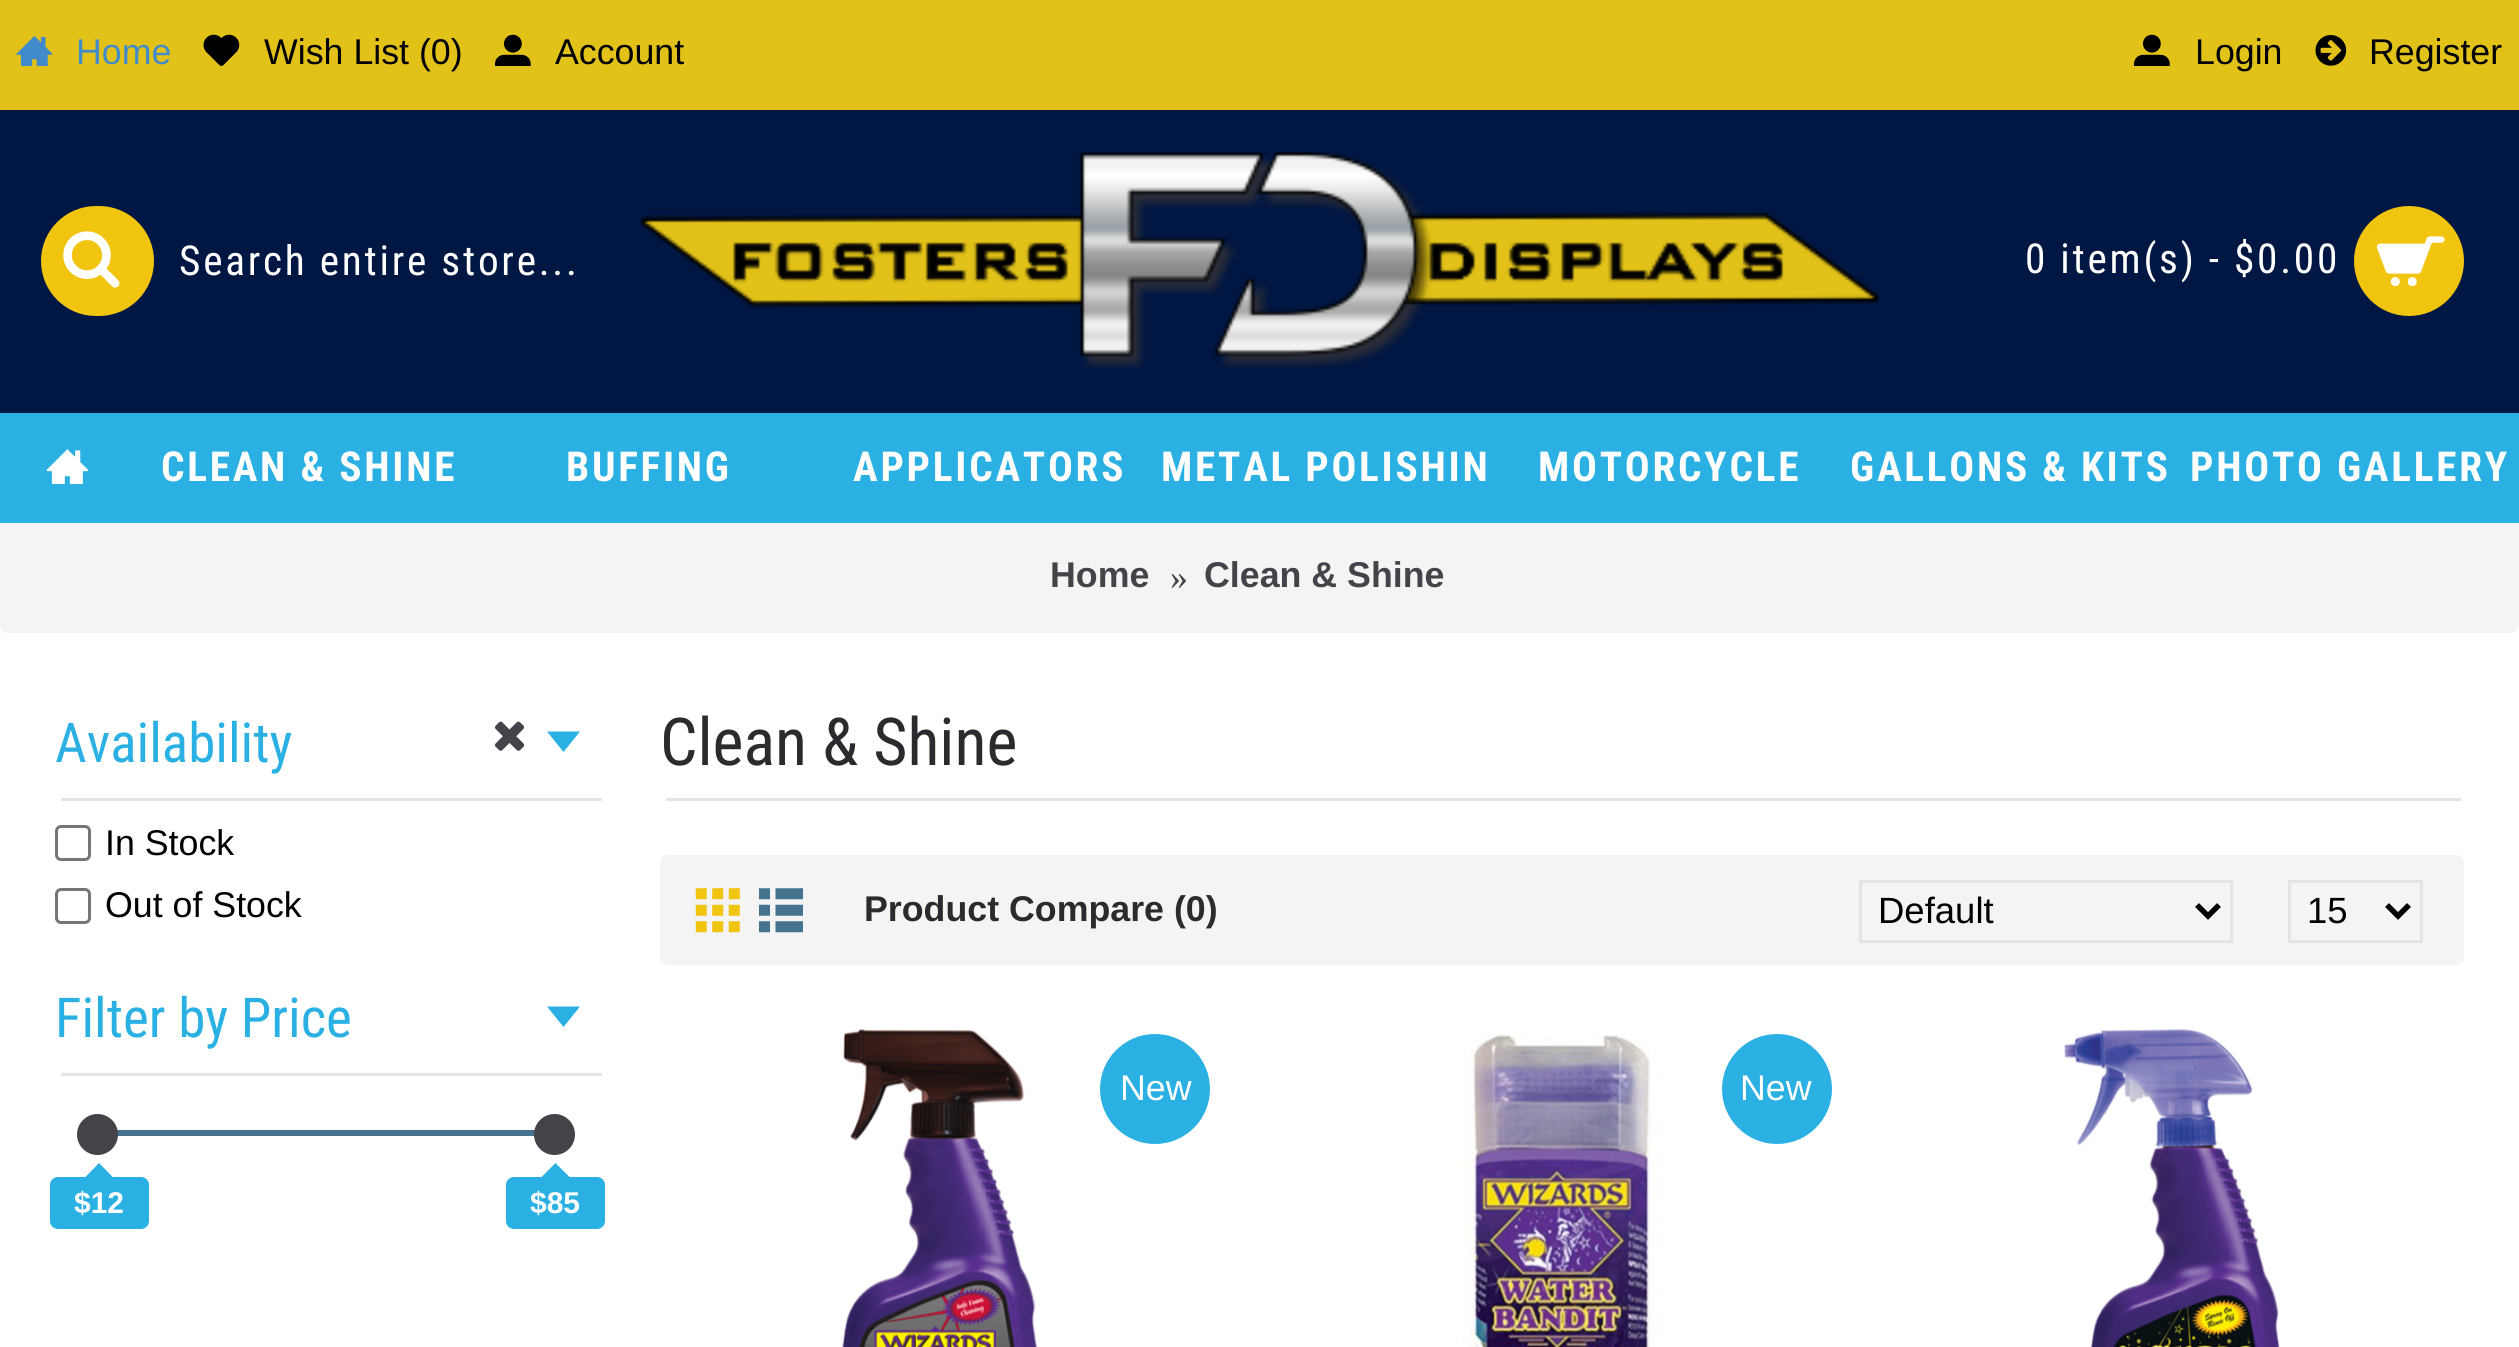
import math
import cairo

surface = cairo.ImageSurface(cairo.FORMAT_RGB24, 2519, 1347)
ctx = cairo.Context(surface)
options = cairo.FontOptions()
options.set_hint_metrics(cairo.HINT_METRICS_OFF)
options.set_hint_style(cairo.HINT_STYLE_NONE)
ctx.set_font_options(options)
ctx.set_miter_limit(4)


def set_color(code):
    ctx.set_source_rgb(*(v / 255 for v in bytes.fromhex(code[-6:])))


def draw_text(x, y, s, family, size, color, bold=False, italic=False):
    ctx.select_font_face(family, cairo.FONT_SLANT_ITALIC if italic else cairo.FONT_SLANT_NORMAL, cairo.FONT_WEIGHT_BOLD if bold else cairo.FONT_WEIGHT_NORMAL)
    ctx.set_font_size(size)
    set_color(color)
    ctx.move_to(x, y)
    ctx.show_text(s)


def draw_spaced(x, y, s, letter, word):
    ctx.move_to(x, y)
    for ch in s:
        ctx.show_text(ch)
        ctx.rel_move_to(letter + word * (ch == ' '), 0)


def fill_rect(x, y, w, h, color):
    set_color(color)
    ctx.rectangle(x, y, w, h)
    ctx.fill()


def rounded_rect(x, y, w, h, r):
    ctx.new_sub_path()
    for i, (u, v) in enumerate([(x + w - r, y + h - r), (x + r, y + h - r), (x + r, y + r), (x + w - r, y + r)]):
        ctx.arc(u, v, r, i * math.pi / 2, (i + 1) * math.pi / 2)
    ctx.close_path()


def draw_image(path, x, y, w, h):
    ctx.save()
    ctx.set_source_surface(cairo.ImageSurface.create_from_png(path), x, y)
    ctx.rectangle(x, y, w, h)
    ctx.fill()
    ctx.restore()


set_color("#011743")
ctx.paint()
fill_rect(0, 0, 2519, 110, "#e2c219")
draw_image("assets/img1.png", 16, 35, 37, 31)
draw_text(76, 64, "Home", "Liberation Sans", 35.75, "#428bca")
draw_image("assets/img2.png", 203, 34, 37, 32)
draw_text(264, 64, "Wish List (0)", "Liberation Sans", 35.75, "#000000")
draw_image("assets/img3.png", 495, 34, 36, 32)
draw_text(555, 64, "Account", "Liberation Sans", 35.75, "#000000")
draw_image("assets/img3.png", 2134, 34, 36, 32)
draw_text(2195, 64, "Login", "Liberation Sans", 35.75, "#000000")
draw_image("assets/img4.png", 2315, 35, 32, 31)
draw_text(2369, 64, "Register", "Liberation Sans", 35.75, "#000000")
set_color("#f1c40f")
rounded_rect(41, 206, 113, 110, 55)
ctx.fill()
draw_image("assets/img5.png", 63, 231, 57, 57)
ctx.select_font_face("Roboto Condensed")
ctx.set_font_size(41.25)
set_color("#ffffff")
draw_spaced(179, 275, "Search entire store...", 2.75, 0)
draw_image("assets/img6.png", 641, 152, 1238, 216)
draw_spaced(2025, 273, "0 item(s) - $0.00", 2.75, 0)
set_color("#f1c40f")
ctx.new_path()
ctx.arc(2409, 261, 55, 0, 2 * math.pi)
ctx.fill()
draw_image("assets/img7.png", 2376, 236, 69, 51)
fill_rect(0, 413, 2519, 110, "#2bb0e3")
draw_image("assets/img8.png", 46, 449, 42, 35)
ctx.select_font_face("Roboto Condensed", cairo.FONT_SLANT_NORMAL, cairo.FONT_WEIGHT_BOLD)
set_color("#ffffff")
draw_spaced(161, 481, "CLEAN & SHINE", 2.75, 0)
draw_spaced(566, 481, "BUFFING", 2.75, 0)
draw_spaced(853, 481, "APPLICATORS", 2.75, 0)
draw_spaced(1161, 481, "METAL POLISHIN", 2.75, 0)
draw_spaced(1538, 481, "MOTORCYCLE", 2.75, 0)
draw_spaced(1850, 481, "GALLONS & KITS", 2.75, 0)
draw_spaced(2190, 481, "PHOTO GALLERY", 2.75, 0)
fill_rect(0, 625, 2519, 722, "#ffffff")
set_color("#f4f4f4")
ctx.new_path()
ctx.move_to(0, 523)
ctx.line_to(2519, 523)
ctx.line_to(2519, 625)
ctx.curve_to(2519, 629.5, 2515.5, 633, 2511, 633)
ctx.line_to(8, 633)
ctx.curve_to(3.5, 633, 0, 629.5, 0, 625)
ctx.close_path()
ctx.fill()
draw_text(1050, 587, "Home", "Liberation Sans", 35.75, "#444349", bold=True)
draw_text(1170, 589, "»", "Liberation Serif", 35.75, "#444349")
draw_text(1204, 587, "Clean & Shine", "Liberation Sans", 35.75, "#444349", bold=True)
fill_rect(61, 798, 541, 3, "#e4e4e4")
draw_text(55, 762, "Availability", "Roboto Condensed", 55, "#2bb0e3")
ctx.new_path()
ctx.move_to(580, 731.5)
ctx.line_to(547, 731.5)
ctx.line_to(563.5, 752)
ctx.close_path()
ctx.fill()
rounded_rect(56.5, 826.5, 33, 33, 4.5)
set_color("#767676")
ctx.set_line_width(3)
ctx.stroke()
draw_text(105, 855, "In Stock", "Liberation Sans", 35.75, "#000000")
rounded_rect(56.5, 889.5, 33, 33, 4.5)
set_color("#767676")
ctx.stroke()
draw_text(105, 917, "Out of Stock", "Liberation Sans", 35.75, "#000000")
draw_image("assets/img9.png", 495, 721, 30, 30)
fill_rect(61, 1073, 541, 3, "#e4e4e4")
draw_text(55, 1037, "Filter by Price", "Roboto Condensed", 55, "#2bb0e3")
ctx.new_path()
ctx.move_to(580, 1006.5)
ctx.line_to(547, 1006.5)
ctx.line_to(563.5, 1027)
ctx.close_path()
ctx.fill()
fill_rect(117, 1130, 418, 6, "#45738f")
set_color("#444349")
ctx.arc(97.5, 1134.5, 20.5, 0, 2 * math.pi)
ctx.fill()
set_color("#2bb0e3")
rounded_rect(50, 1177, 99, 52, 8)
ctx.fill()
ctx.new_path()
ctx.move_to(118, 1182.5)
ctx.line_to(80, 1182.5)
ctx.line_to(99, 1163)
ctx.close_path()
ctx.fill()
draw_text(74, 1213, "$12", "Liberation Sans", 30, "#ffffff", bold=True)
set_color("#444349")
ctx.new_path()
ctx.arc(554.5, 1134.5, 20.5, 0, 2 * math.pi)
ctx.fill()
set_color("#2bb0e3")
rounded_rect(506, 1177, 99, 52, 8)
ctx.fill()
ctx.new_path()
ctx.move_to(575, 1182.5)
ctx.line_to(536, 1182.5)
ctx.line_to(555.5, 1163)
ctx.close_path()
ctx.fill()
draw_text(530, 1213, "$85", "Liberation Sans", 30, "#ffffff", bold=True)
fill_rect(666, 798, 1795, 3, "#e4e4e4")
draw_text(660, 765, "Clean & Shine", "Roboto Condensed", 66, "#2a2b2e")
set_color("#f4f4f4")
rounded_rect(660, 855, 1804, 110, 8)
ctx.fill()
draw_image("assets/img10.png", 695, 888, 45, 45)
draw_image("assets/img11.png", 759, 888, 44, 45)
draw_text(864, 921, "Product Compare (0)", "Liberation Sans", 35.75, "#2a2b2e", bold=True)
ctx.rectangle(1860.5, 881.5, 371, 60)
set_color("#e4e4e4")
ctx.stroke()
ctx.new_path()
ctx.move_to(2197, 905)
ctx.line_to(2208, 916)
ctx.line_to(2219, 905)
set_color("#000000")
ctx.set_line_width(5.5)
ctx.stroke()
draw_text(1878, 923, "Default", "Liberation Sans", 36.5, "#000000")
ctx.rectangle(2289.5, 881.5, 132, 60)
set_color("#e4e4e4")
ctx.set_line_width(3)
ctx.stroke()
ctx.new_path()
ctx.move_to(2387, 905)
ctx.line_to(2398, 916)
ctx.line_to(2409, 905)
set_color("#000000")
ctx.set_line_width(5.5)
ctx.stroke()
draw_text(2307, 923, "15", "Liberation Sans", 36.5, "#000000")
draw_image("assets/img12.png", 842, 1029, 196, 318)
set_color("#2bb0e3")
ctx.arc(1155, 1089, 55, 0, 2 * math.pi)
ctx.fill()
draw_text(1120, 1100, "New", "Liberation Sans", 35.75, "#ffffff")
draw_image("assets/img13.png", 1461, 1034, 199, 313)
set_color("#2bb0e3")
ctx.arc(1777, 1089, 55, 0, 2 * math.pi)
ctx.fill()
draw_text(1740, 1100, "New", "Liberation Sans", 35.75, "#ffffff")
draw_image("assets/img14.png", 2063, 1029, 217, 318)
surface.write_to_png("output.png")
